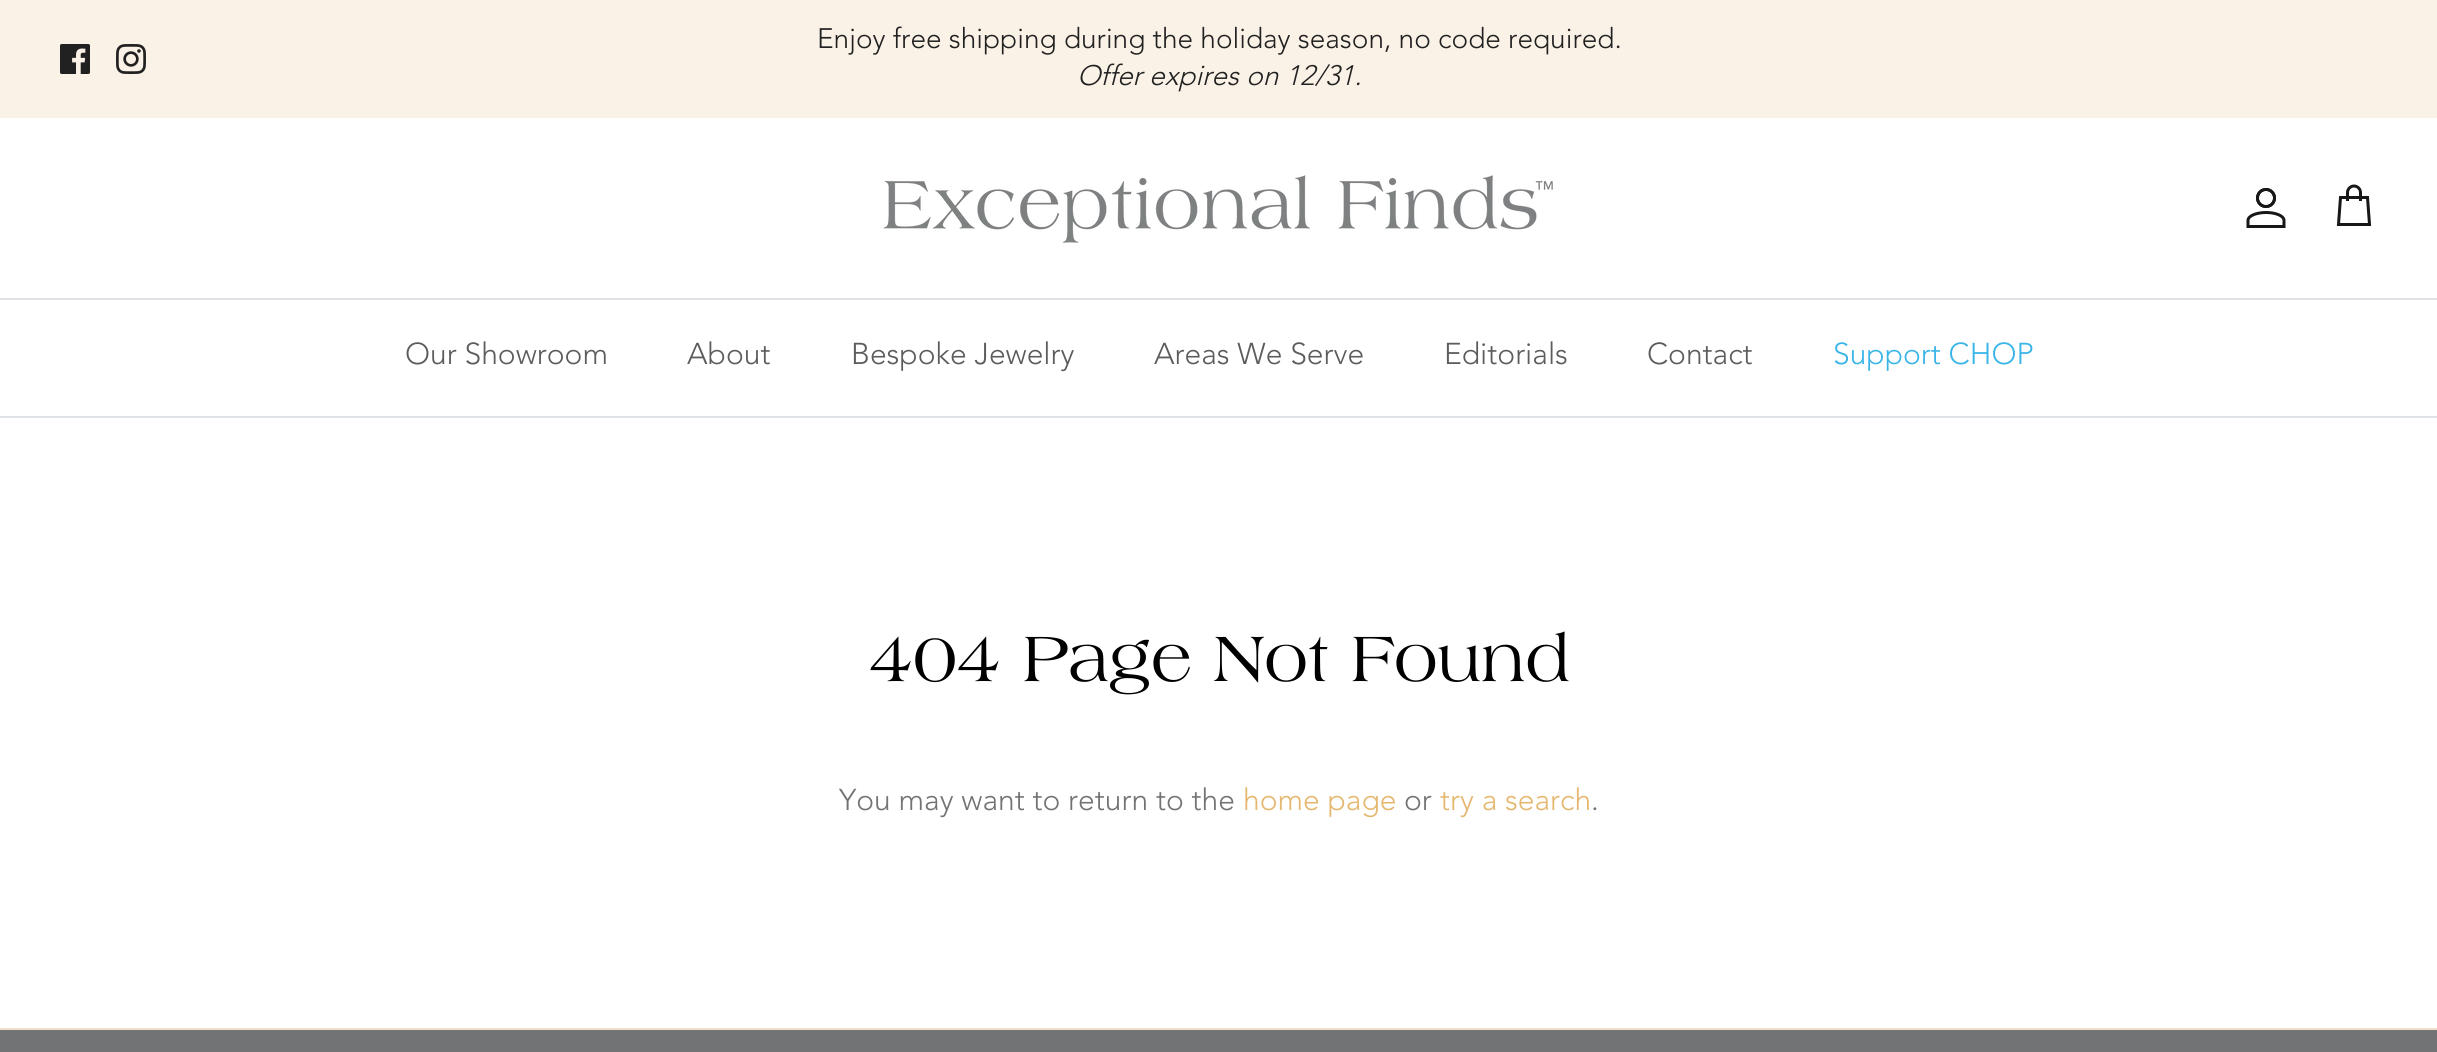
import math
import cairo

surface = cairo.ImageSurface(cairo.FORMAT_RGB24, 2437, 1052)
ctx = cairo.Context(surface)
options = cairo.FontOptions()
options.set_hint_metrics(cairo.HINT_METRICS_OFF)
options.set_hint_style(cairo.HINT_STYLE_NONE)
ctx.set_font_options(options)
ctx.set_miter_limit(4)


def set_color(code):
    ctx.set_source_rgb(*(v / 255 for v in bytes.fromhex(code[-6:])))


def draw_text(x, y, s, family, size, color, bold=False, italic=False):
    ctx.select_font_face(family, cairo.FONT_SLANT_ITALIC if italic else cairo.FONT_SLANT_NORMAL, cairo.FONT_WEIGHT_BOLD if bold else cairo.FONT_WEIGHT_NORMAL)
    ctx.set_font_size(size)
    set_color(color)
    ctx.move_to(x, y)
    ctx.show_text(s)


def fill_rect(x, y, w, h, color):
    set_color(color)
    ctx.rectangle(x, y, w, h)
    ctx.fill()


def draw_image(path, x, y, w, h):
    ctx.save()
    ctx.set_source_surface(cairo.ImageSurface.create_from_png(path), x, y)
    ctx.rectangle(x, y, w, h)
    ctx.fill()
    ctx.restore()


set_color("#ffffff")
ctx.paint()
fill_rect(0, 0, 2437, 118, "#faf2e6")
draw_image("assets/img1.png", 60, 44, 30, 30)
draw_image("assets/img2.png", 116, 44, 30, 30)
draw_text(817, 48, "Enjoy free shipping during the holiday season, no code required.", "Avenir Light", 28, "#212121")
draw_text(1077, 85, "Offer expires on 12/31.", "Avenir Light", 28, "#212121", italic=True)
fill_rect(0, 298, 2437, 2, "#dfe3e8")
draw_image("assets/img3.png", 883, 175, 670, 68)
draw_image("assets/img4.png", 2246, 188, 40, 40)
ctx.new_path()
ctx.move_to(2360.5, 201)
ctx.line_to(2360.5, 192.5)
ctx.curve_to(2360.5, 189, 2357.5, 186, 2354, 186)
ctx.curve_to(2350.5, 186, 2347.5, 189, 2347.5, 192.5)
ctx.line_to(2347.5, 201)
ctx.move_to(2340.5, 197.5)
ctx.line_to(2367.5, 197.5)
ctx.line_to(2369.5, 224.5)
ctx.line_to(2338.5, 224.5)
ctx.close_path()
set_color("#171717")
ctx.set_line_width(3)
ctx.stroke()
fill_rect(0, 416, 2437, 2, "#dfe3e8")
draw_text(405, 364, "Our Showroom", "Avenir Light", 30, "#5c5c5c")
draw_text(687, 364, "About", "Avenir Light", 30, "#5c5c5c")
draw_text(851, 364, "Bespoke Jewelry", "Avenir Light", 30, "#5c5c5c")
draw_text(1154, 364, "Areas We Serve", "Avenir Light", 30, "#5c5c5c")
draw_text(1444, 364, "Editorials", "Avenir Light", 30, "#5c5c5c")
draw_text(1647, 364, "Contact", "Avenir Light", 30, "#5c5c5c")
draw_text(1833, 364, "Support CHOP", "Avenir Light", 30, "#3ab5e7")
draw_text(869, 681, "404 Page Not Found", "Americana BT", 68, "#000000")
draw_text(839, 810, "You may want to return to the", "Avenir Light", 30, "#727374")
draw_text(1243, 810, "home page", "Avenir Light", 30, "#e5b76f")
draw_text(1404, 810, "or", "Avenir Light", 30, "#727374")
draw_text(1440, 810, "try a search", "Avenir Light", 30, "#e5b76f")
draw_text(1591, 810, ".", "Avenir Light", 30, "#727374")
fill_rect(0, 1030, 2437, 22, "#727374")
fill_rect(0, 1028, 2437, 2, "#efdfc7")
surface.write_to_png("output.png")
